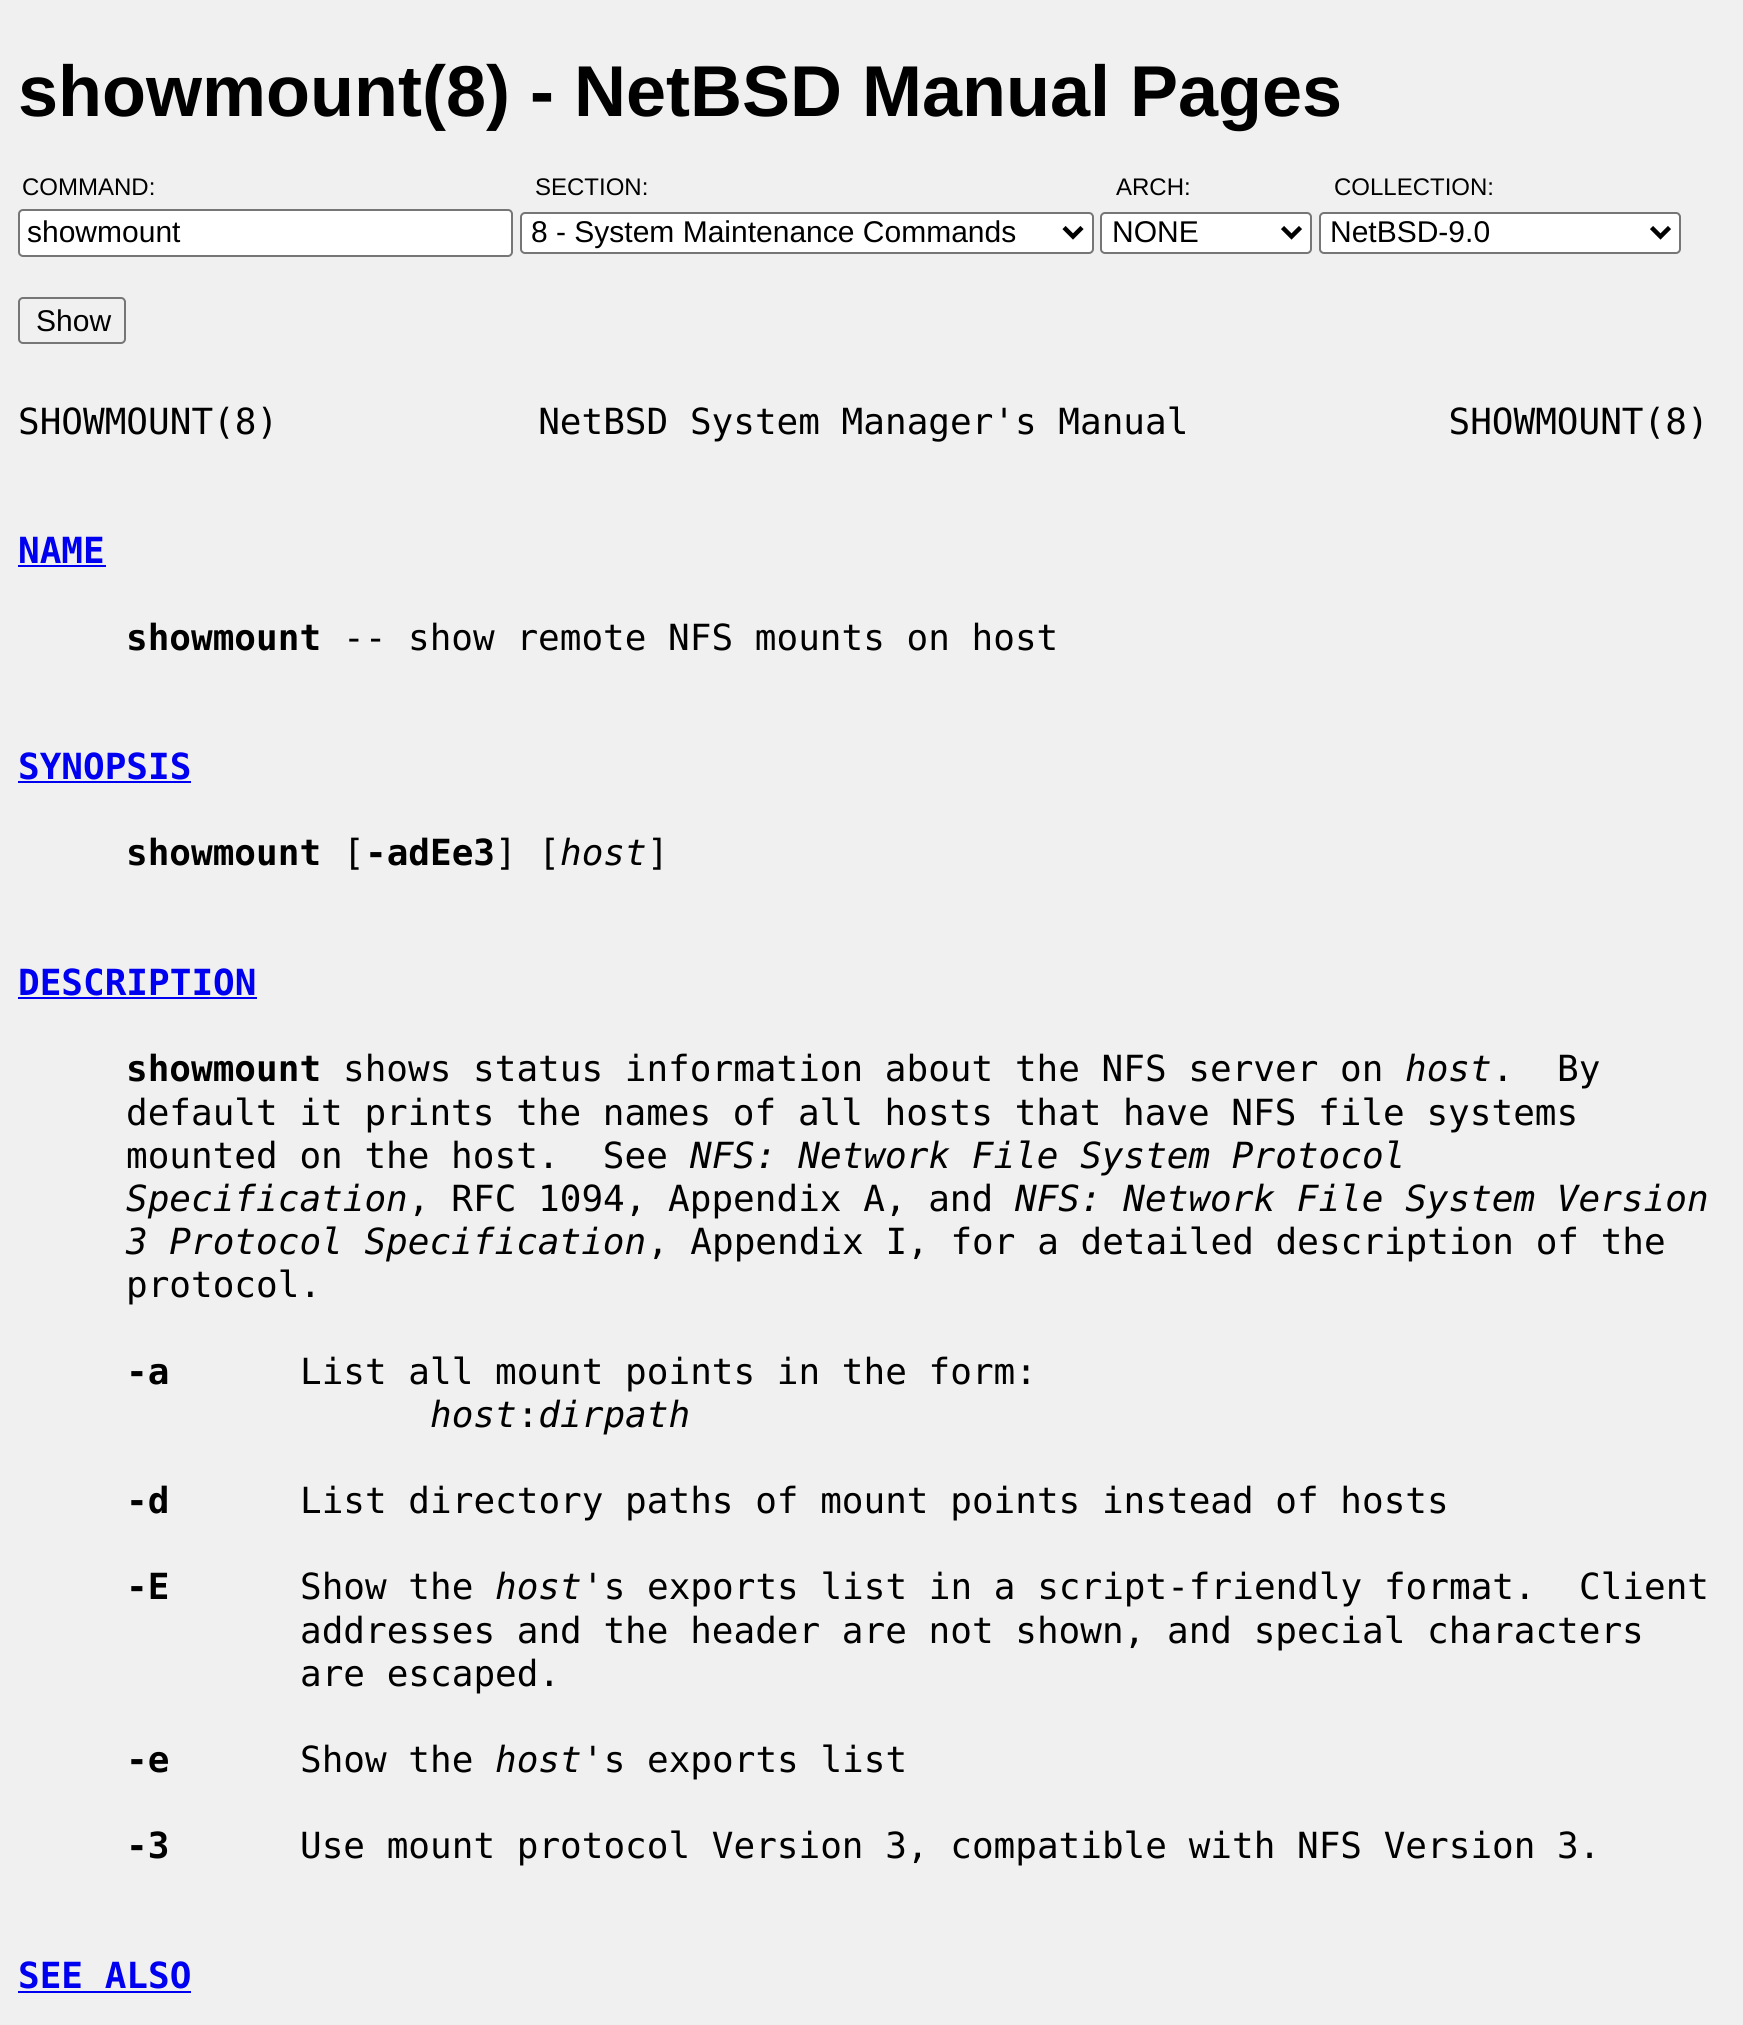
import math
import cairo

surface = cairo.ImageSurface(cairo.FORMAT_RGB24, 1743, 2025)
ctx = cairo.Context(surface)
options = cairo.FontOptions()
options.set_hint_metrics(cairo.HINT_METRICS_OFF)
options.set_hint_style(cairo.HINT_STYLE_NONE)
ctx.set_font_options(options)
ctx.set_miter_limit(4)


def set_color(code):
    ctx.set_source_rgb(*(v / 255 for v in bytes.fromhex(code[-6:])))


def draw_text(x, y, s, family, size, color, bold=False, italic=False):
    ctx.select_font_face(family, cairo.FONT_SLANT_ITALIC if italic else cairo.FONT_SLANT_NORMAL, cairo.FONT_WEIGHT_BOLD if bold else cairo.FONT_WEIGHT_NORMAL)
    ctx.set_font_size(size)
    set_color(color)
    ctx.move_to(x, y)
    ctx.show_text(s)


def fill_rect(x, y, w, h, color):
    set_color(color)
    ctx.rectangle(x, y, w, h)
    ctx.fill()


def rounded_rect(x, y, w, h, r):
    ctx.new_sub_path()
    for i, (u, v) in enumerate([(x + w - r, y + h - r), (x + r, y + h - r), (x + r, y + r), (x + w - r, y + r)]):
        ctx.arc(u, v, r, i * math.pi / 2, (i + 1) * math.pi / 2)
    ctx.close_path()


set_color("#f0f0f0")
ctx.paint()
draw_text(18, 116, "showmount(8) - NetBSD Manual Pages", "Liberation Sans", 72, "#000000", bold=True)
draw_text(22, 195, "COMMAND:", "Liberation Sans", 24, "#000000")
set_color("#ffffff")
rounded_rect(19, 210, 493, 46, 4)
ctx.fill_preserve()
set_color("#767676")
ctx.stroke()
draw_text(27, 242, "showmount", "Liberation Sans", 30, "#000000")
draw_text(535, 195, "SECTION:", "Liberation Sans", 24, "#000000")
set_color("#ffffff")
rounded_rect(521, 213, 572, 40, 4)
ctx.fill_preserve()
set_color("#767676")
ctx.stroke()
ctx.new_path()
ctx.move_to(1064, 227.5)
ctx.line_to(1073, 236.5)
ctx.line_to(1082, 227.5)
set_color("#000000")
ctx.set_line_width(4.5)
ctx.stroke()
draw_text(531, 242, "8 - System Maintenance Commands", "Liberation Sans", 30, "#000000")
draw_text(1116, 195, "ARCH:", "Liberation Sans", 24, "#000000")
set_color("#ffffff")
rounded_rect(1101, 213, 210, 40, 4)
ctx.fill_preserve()
set_color("#767676")
ctx.set_line_width(2)
ctx.stroke()
ctx.new_path()
ctx.move_to(1282.5, 227.5)
ctx.line_to(1291.5, 236.5)
ctx.line_to(1300.5, 227.5)
set_color("#000000")
ctx.set_line_width(4.5)
ctx.stroke()
draw_text(1112, 242, "NONE", "Liberation Sans", 30, "#000000")
draw_text(1334, 195, "COLLECTION:", "Liberation Sans", 24, "#000000")
set_color("#ffffff")
rounded_rect(1320, 213, 360, 40, 4)
ctx.fill_preserve()
set_color("#767676")
ctx.set_line_width(2)
ctx.stroke()
ctx.new_path()
ctx.move_to(1651.5, 227.5)
ctx.line_to(1660.5, 236.5)
ctx.line_to(1669.5, 227.5)
set_color("#000000")
ctx.set_line_width(4.5)
ctx.stroke()
draw_text(1330, 242, "NetBSD-9.0", "Liberation Sans", 30, "#000000")
rounded_rect(19, 298, 106, 45, 4)
set_color("#767676")
ctx.set_line_width(2)
ctx.stroke()
draw_text(36, 331, "Show", "Liberation Sans", 30, "#000000")
draw_text(18, 434, "SHOWMOUNT(8)            NetBSD System Manager's Manual            SHOWMOUNT(8)", "DejaVu Sans Mono", 36, "#000000")
draw_text(18, 563, "NAME", "DejaVu Sans Mono", 36, "#0000f0", bold=True)
fill_rect(18, 565, 88, 2, "#0000f0")
draw_text(126, 650, "showmount", "DejaVu Sans Mono", 36, "#000000", bold=True)
draw_text(343, 650, "-- show remote NFS mounts on host", "DejaVu Sans Mono", 36, "#000000")
draw_text(18, 779, "SYNOPSIS", "DejaVu Sans Mono", 36, "#0000f0", bold=True)
fill_rect(18, 781, 173, 2, "#0000f0")
draw_text(126, 865, "showmount", "DejaVu Sans Mono", 36, "#000000", bold=True)
draw_text(343, 865, "[", "DejaVu Sans Mono", 36, "#000000")
draw_text(365, 865, "-adEe3", "DejaVu Sans Mono", 36, "#000000", bold=True)
draw_text(495, 865, "] [", "DejaVu Sans Mono", 36, "#000000")
draw_text(560, 865, "host", "DejaVu Sans Mono", 36, "#000000", italic=True)
draw_text(647, 865, "]", "DejaVu Sans Mono", 36, "#000000")
draw_text(18, 995, "DESCRIPTION", "DejaVu Sans Mono", 36, "#0000f0", bold=True)
fill_rect(18, 997, 239, 2, "#0000f0")
draw_text(126, 1081, "showmount", "DejaVu Sans Mono", 36, "#000000", bold=True)
draw_text(343, 1081, "shows status information about the NFS server on", "DejaVu Sans Mono", 36, "#000000")
draw_text(1405, 1081, "host", "DejaVu Sans Mono", 36, "#000000", italic=True)
draw_text(1492, 1081, ".  By", "DejaVu Sans Mono", 36, "#000000")
draw_text(126, 1125, "default it prints the names of all hosts that have NFS file systems", "DejaVu Sans Mono", 36, "#000000")
draw_text(126, 1168, "mounted on the host.  See", "DejaVu Sans Mono", 36, "#000000")
draw_text(690, 1168, "NFS: Network File System Protocol", "DejaVu Sans Mono", 36, "#000000", italic=True)
draw_text(126, 1211, "Specification", "DejaVu Sans Mono", 36, "#000000", italic=True)
draw_text(408, 1211, ", RFC 1094, Appendix A, and", "DejaVu Sans Mono", 36, "#000000")
draw_text(1015, 1211, "NFS: Network File System Version", "DejaVu Sans Mono", 36, "#000000", italic=True)
draw_text(126, 1254, "3 Protocol Specification", "DejaVu Sans Mono", 36, "#000000", italic=True)
draw_text(647, 1254, ", Appendix I, for a detailed description of the", "DejaVu Sans Mono", 36, "#000000")
draw_text(126, 1297, "protocol.", "DejaVu Sans Mono", 36, "#000000")
draw_text(126, 1384, "-a", "DejaVu Sans Mono", 36, "#000000", bold=True)
draw_text(300, 1384, "List all mount points in the form:", "DejaVu Sans Mono", 36, "#000000")
draw_text(430, 1427, "host dirpath", "DejaVu Sans Mono", 36, "#000000", italic=True)
draw_text(517, 1427, ":", "DejaVu Sans Mono", 36, "#000000")
draw_text(126, 1513, "-d", "DejaVu Sans Mono", 36, "#000000", bold=True)
draw_text(300, 1513, "List directory paths of mount points instead of hosts", "DejaVu Sans Mono", 36, "#000000")
draw_text(126, 1599, "-E", "DejaVu Sans Mono", 36, "#000000", bold=True)
draw_text(300, 1599, "Show the", "DejaVu Sans Mono", 36, "#000000")
draw_text(495, 1599, "host", "DejaVu Sans Mono", 36, "#000000", italic=True)
draw_text(582, 1599, "'s exports list in a script-friendly format.  Client", "DejaVu Sans Mono", 36, "#000000")
draw_text(300, 1643, "addresses and the header are not shown, and special characters", "DejaVu Sans Mono", 36, "#000000")
draw_text(300, 1686, "are escaped.", "DejaVu Sans Mono", 36, "#000000")
draw_text(126, 1772, "-e", "DejaVu Sans Mono", 36, "#000000", bold=True)
draw_text(300, 1772, "Show the", "DejaVu Sans Mono", 36, "#000000")
draw_text(495, 1772, "host", "DejaVu Sans Mono", 36, "#000000", italic=True)
draw_text(582, 1772, "'s exports list", "DejaVu Sans Mono", 36, "#000000")
draw_text(126, 1858, "-3", "DejaVu Sans Mono", 36, "#000000", bold=True)
draw_text(300, 1858, "Use mount protocol Version 3, compatible with NFS Version 3.", "DejaVu Sans Mono", 36, "#000000")
draw_text(18, 1988, "SEE ALSO", "DejaVu Sans Mono", 36, "#0000f0", bold=True)
fill_rect(18, 1991, 173, 2, "#0000f0")
surface.write_to_png("output.png")
